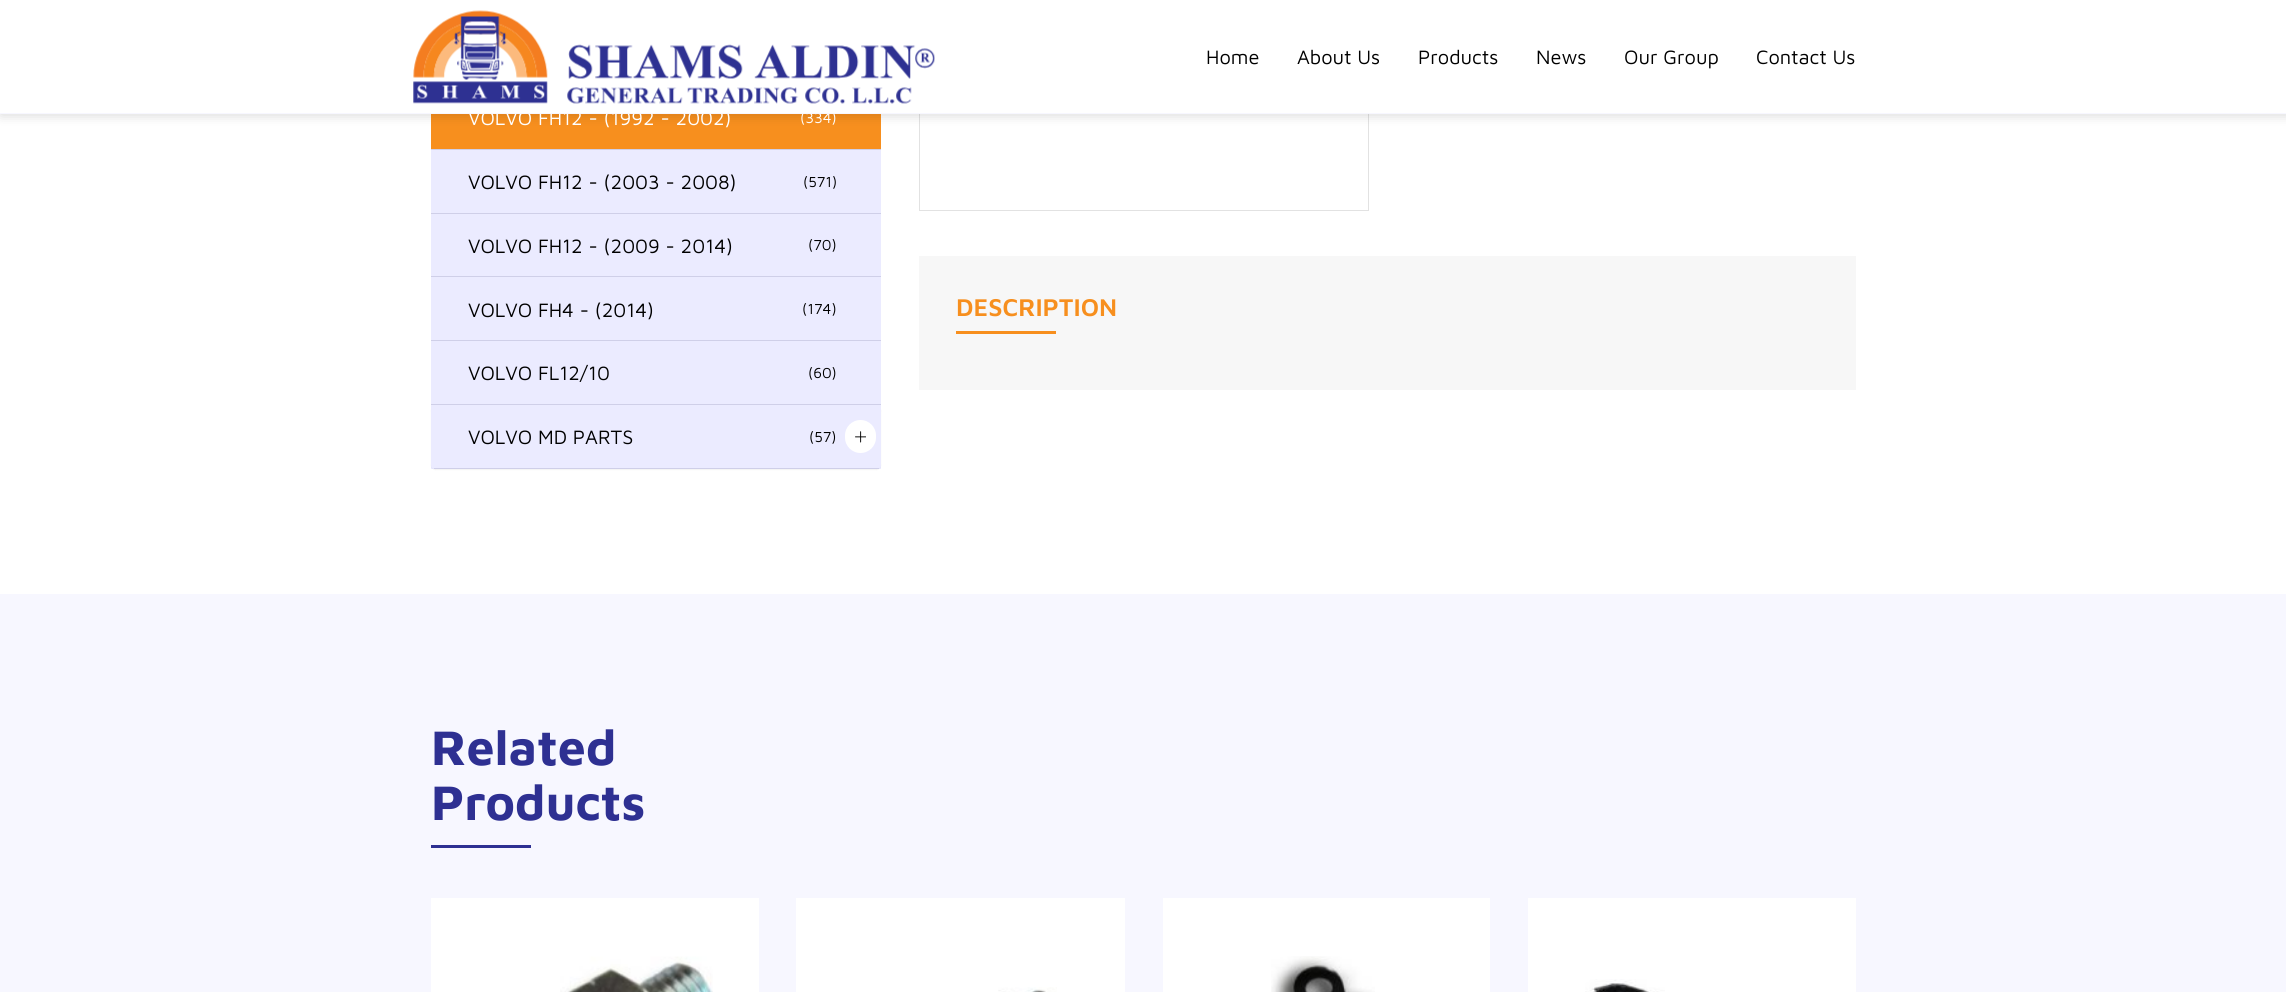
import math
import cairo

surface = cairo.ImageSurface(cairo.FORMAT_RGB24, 2286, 992)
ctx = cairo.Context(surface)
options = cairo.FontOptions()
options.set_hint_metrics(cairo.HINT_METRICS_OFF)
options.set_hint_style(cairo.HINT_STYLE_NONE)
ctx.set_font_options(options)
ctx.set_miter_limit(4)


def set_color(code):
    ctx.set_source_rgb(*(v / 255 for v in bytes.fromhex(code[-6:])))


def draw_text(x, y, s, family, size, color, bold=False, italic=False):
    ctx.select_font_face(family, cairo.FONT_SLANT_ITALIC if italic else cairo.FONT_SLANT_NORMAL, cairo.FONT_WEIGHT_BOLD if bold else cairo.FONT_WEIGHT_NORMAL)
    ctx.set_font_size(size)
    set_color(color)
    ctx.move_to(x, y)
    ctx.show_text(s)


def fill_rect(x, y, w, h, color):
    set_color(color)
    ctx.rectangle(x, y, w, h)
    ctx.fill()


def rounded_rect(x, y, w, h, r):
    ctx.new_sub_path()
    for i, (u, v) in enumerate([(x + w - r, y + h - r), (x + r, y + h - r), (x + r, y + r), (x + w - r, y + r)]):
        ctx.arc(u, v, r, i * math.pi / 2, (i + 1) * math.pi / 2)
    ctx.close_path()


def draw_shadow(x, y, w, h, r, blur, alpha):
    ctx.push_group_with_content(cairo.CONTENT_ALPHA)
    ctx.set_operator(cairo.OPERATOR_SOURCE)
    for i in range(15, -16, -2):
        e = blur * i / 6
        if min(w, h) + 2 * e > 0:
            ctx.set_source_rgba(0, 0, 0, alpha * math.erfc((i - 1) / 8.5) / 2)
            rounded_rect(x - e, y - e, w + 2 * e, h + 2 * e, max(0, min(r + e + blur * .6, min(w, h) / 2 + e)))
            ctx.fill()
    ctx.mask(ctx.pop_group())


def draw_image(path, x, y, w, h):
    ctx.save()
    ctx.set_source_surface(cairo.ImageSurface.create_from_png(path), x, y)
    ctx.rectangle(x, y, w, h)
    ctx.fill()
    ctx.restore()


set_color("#ffffff")
ctx.paint()
fill_rect(431, 114, 450, 35, "#f78f1e")
ctx.rectangle(919.5, -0.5, 449, 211)
set_color("#e2e2e2")
ctx.set_line_width(1)
ctx.stroke()
set_color("#040404")
draw_shadow(1, 1, 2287, 114, 0, 6, 0.16)
fill_rect(0, 0, 2286, 113, "#ffffff")
draw_text(468, 125, "VOLVO FH12 - (1992 - 2002)", "Maven Pro", 20, "#ffffff")
draw_text(800, 123, "(334)", "Maven Pro", 15, "#ffffff")
fill_rect(0, 113, 2286, 1, "#f7f7ff")
draw_image("assets/img1.png", 413, 10, 522, 94)
draw_text(1206, 64, "Home", "Maven Pro", 20, "#000000")
draw_text(1297, 64, "About Us", "Maven Pro", 20, "#000000")
draw_text(1418, 64, "Products", "Maven Pro", 20, "#000000")
draw_text(1536, 64, "News", "Maven Pro", 20, "#000000")
draw_text(1624, 64, "Our Group", "Maven Pro", 20, "#000000")
draw_text(1756, 64, "Contact Us", "Maven Pro", 20, "#000000")
fill_rect(431, 150, 450, 319, "#ebebff")
fill_rect(431, 149, 450, 1, "#cfcfe8")
fill_rect(431, 213, 450, 1, "#cfcfe8")
draw_text(468, 189, "VOLVO FH12 - (2003 - 2008)", "Maven Pro", 20, "#000000")
draw_text(803, 187, "(571)", "Maven Pro", 15, "#000000")
fill_rect(431, 276, 450, 1, "#cfcfe8")
draw_text(468, 253, "VOLVO FH12 - (2009 - 2014)", "Maven Pro", 20, "#000000")
draw_text(808, 250, "(70)", "Maven Pro", 15, "#000000")
fill_rect(431, 340, 450, 1, "#cfcfe8")
draw_text(468, 317, "VOLVO FH4 - (2014)", "Maven Pro", 20, "#000000")
draw_text(802, 314, "(174)", "Maven Pro", 15, "#000000")
fill_rect(431, 404, 450, 1, "#cfcfe8")
draw_text(468, 380, "VOLVO FL12/10", "Maven Pro", 20, "#000000")
draw_text(808, 378, "(60)", "Maven Pro", 15, "#000000")
ctx.save()
ctx.set_fill_rule(cairo.FILL_RULE_EVEN_ODD)
ctx.new_path()
ctx.move_to(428, 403)
ctx.line_to(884, 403)
ctx.line_to(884, 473)
ctx.line_to(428, 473)
ctx.close_path()
ctx.move_to(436, 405)
ctx.line_to(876, 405)
ctx.curve_to(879, 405, 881, 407, 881, 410)
ctx.line_to(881, 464)
ctx.curve_to(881, 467, 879, 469, 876, 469)
ctx.line_to(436, 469)
ctx.curve_to(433, 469, 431, 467, 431, 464)
ctx.line_to(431, 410)
ctx.curve_to(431, 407, 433, 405, 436, 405)
ctx.close_path()
ctx.clip()
set_color("#000000")
draw_shadow(431, 406, 450, 64, 5, 0.5, 0.05)
ctx.restore()
fill_rect(434, 468, 445, 1, "#cfcfe8")
draw_text(468, 444, "VOLVO MD PARTS", "Maven Pro", 20, "#000000")
draw_text(809, 442, "(57)", "Maven Pro", 15, "#000000")
set_color("#ffffff")
rounded_rect(845, 420, 31, 33, 15.5)
ctx.fill()
draw_image("assets/img2.png", 855, 431, 11, 12)
fill_rect(919, 256, 937, 134, "#f7f7f7")
draw_text(956, 316, "DESCRIPTION", "Maven Pro SemiBold", 25, "#f78f1e")
fill_rect(956, 331, 100, 3, "#f78f1e")
fill_rect(0, 594, 2286, 398, "#f7f7ff")
draw_text(431, 765, "Related", "Maven Pro", 50, "#2e3092", bold=True)
draw_text(431, 820, "Products", "Maven Pro", 50, "#2e3092", bold=True)
fill_rect(431, 845, 100, 3, "#2e3092")
fill_rect(431, 898, 328, 94, "#ffffff")
draw_image("assets/img3.png", 560, 956, 153, 36)
fill_rect(796, 898, 329, 94, "#ffffff")
draw_image("assets/img4.png", 998, 987, 59, 5)
fill_rect(1163, 898, 327, 94, "#ffffff")
draw_image("assets/img5.png", 1271, 956, 104, 36)
fill_rect(1528, 898, 328, 94, "#ffffff")
draw_image("assets/img6.png", 1585, 979, 80, 13)
surface.write_to_png("output.png")
